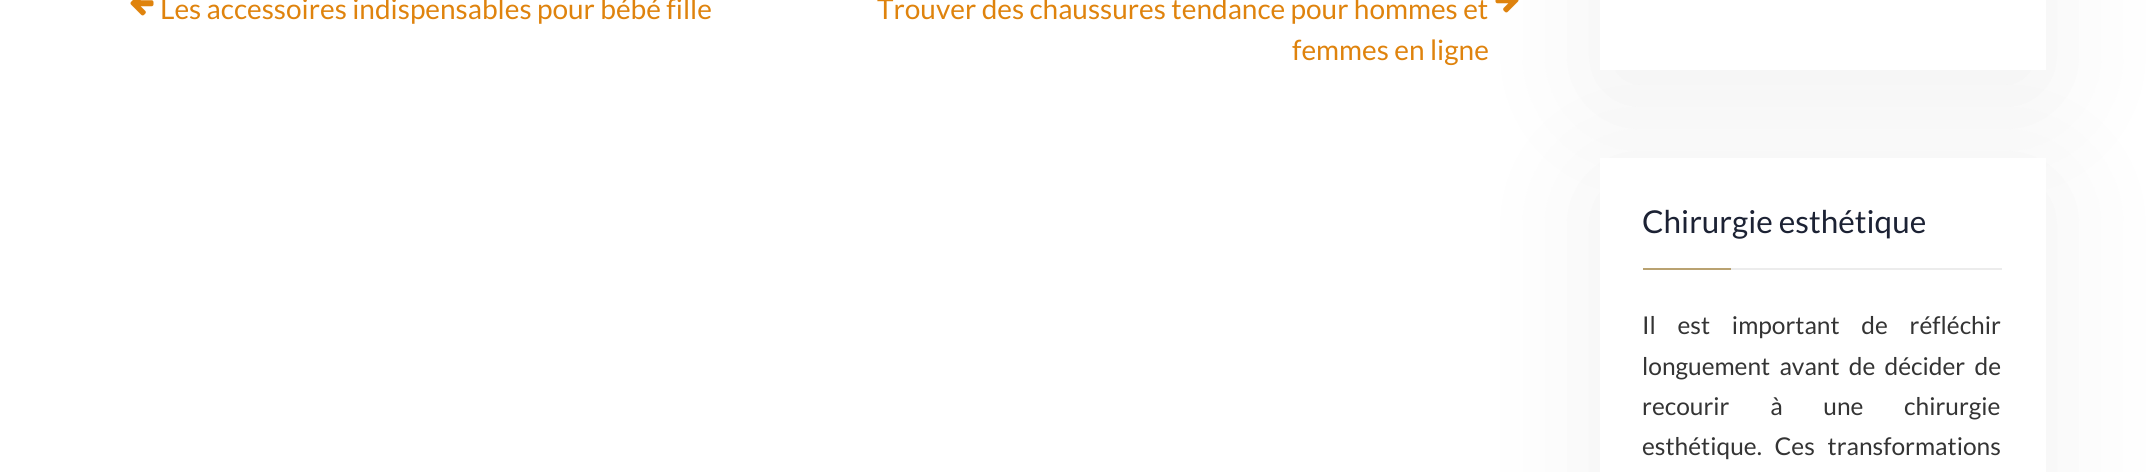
import math
import cairo

surface = cairo.ImageSurface(cairo.FORMAT_RGB24, 2147, 472)
ctx = cairo.Context(surface)
options = cairo.FontOptions()
options.set_hint_metrics(cairo.HINT_METRICS_OFF)
options.set_hint_style(cairo.HINT_STYLE_NONE)
ctx.set_font_options(options)
ctx.set_miter_limit(4)


def set_color(code):
    ctx.set_source_rgb(*(v / 255 for v in bytes.fromhex(code[-6:])))


def draw_text(x, y, s, family, size, color, bold=False, italic=False):
    ctx.select_font_face(family, cairo.FONT_SLANT_ITALIC if italic else cairo.FONT_SLANT_NORMAL, cairo.FONT_WEIGHT_BOLD if bold else cairo.FONT_WEIGHT_NORMAL)
    ctx.set_font_size(size)
    set_color(color)
    ctx.move_to(x, y)
    ctx.show_text(s)


def draw_spaced(x, y, s, letter, word):
    ctx.move_to(x, y)
    for ch in s:
        ctx.show_text(ch)
        ctx.rel_move_to(letter + word * (ch == ' '), 0)


def fill_rect(x, y, w, h, color):
    set_color(color)
    ctx.rectangle(x, y, w, h)
    ctx.fill()


def rounded_rect(x, y, w, h, r):
    ctx.new_sub_path()
    for i, (u, v) in enumerate([(x + w - r, y + h - r), (x + r, y + h - r), (x + r, y + r), (x + w - r, y + r)]):
        ctx.arc(u, v, r, i * math.pi / 2, (i + 1) * math.pi / 2)
    ctx.close_path()


def draw_shadow(x, y, w, h, r, blur, alpha):
    ctx.push_group_with_content(cairo.CONTENT_ALPHA)
    ctx.set_operator(cairo.OPERATOR_SOURCE)
    for i in range(15, -16, -2):
        e = blur * i / 6
        if min(w, h) + 2 * e > 0:
            ctx.set_source_rgba(0, 0, 0, alpha * math.erfc((i - 1) / 8.5) / 2)
            rounded_rect(x - e, y - e, w + 2 * e, h + 2 * e, max(0, min(r + e + blur * .6, min(w, h) / 2 + e)))
            ctx.fill()
    ctx.mask(ctx.pop_group())


def draw_image(path, x, y, w, h):
    ctx.save()
    ctx.set_source_surface(cairo.ImageSurface.create_from_png(path), x, y)
    ctx.rectangle(x, y, w, h)
    ctx.fill()
    ctx.restore()


set_color("#ffffff")
ctx.paint()
draw_image("assets/img1.png", 130, 0, 24, 16)
draw_text(160, 19, "Les accessoires indispensables pour bébé fille", "Lato", 28, "#df830d")
draw_text(877, 19, "Trouver des chaussures tendance pour hommes et", "Lato", 28, "#df830d")
draw_image("assets/img2.png", 1495, 0, 24, 13)
draw_text(1292, 60, "femmes en ligne", "Lato", 28, "#df830d")
set_color("#000000")
draw_shadow(1600, -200, 446, 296, 0, 66.5, 0.06)
fill_rect(1600, 0, 446, 70, "#ffffff")
set_color("#000000")
draw_shadow(1600, 184, 446, 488, 0, 66.5, 0.06)
fill_rect(1600, 158, 446, 314, "#ffffff")
draw_text(1642, 233, "Chirurgie esthétique", "Lato", 31.5, "#1c2234")
fill_rect(1643, 268, 88, 2, "#b9a271")
fill_rect(1731, 268, 271, 2, "#ececec")
ctx.set_font_size(24.5)
set_color("#343434")
draw_spaced(1642, 334, "Il est important de réfléchir", 0, 17)
draw_spaced(1642, 375, "longuement avant de décider de", 0, 4.5)
draw_spaced(1642, 415, "recourir à une chirurgie", 0, 36)
draw_spaced(1642, 455, "esthétique. Ces transformations", 0, 8)
surface.write_to_png("output.png")
